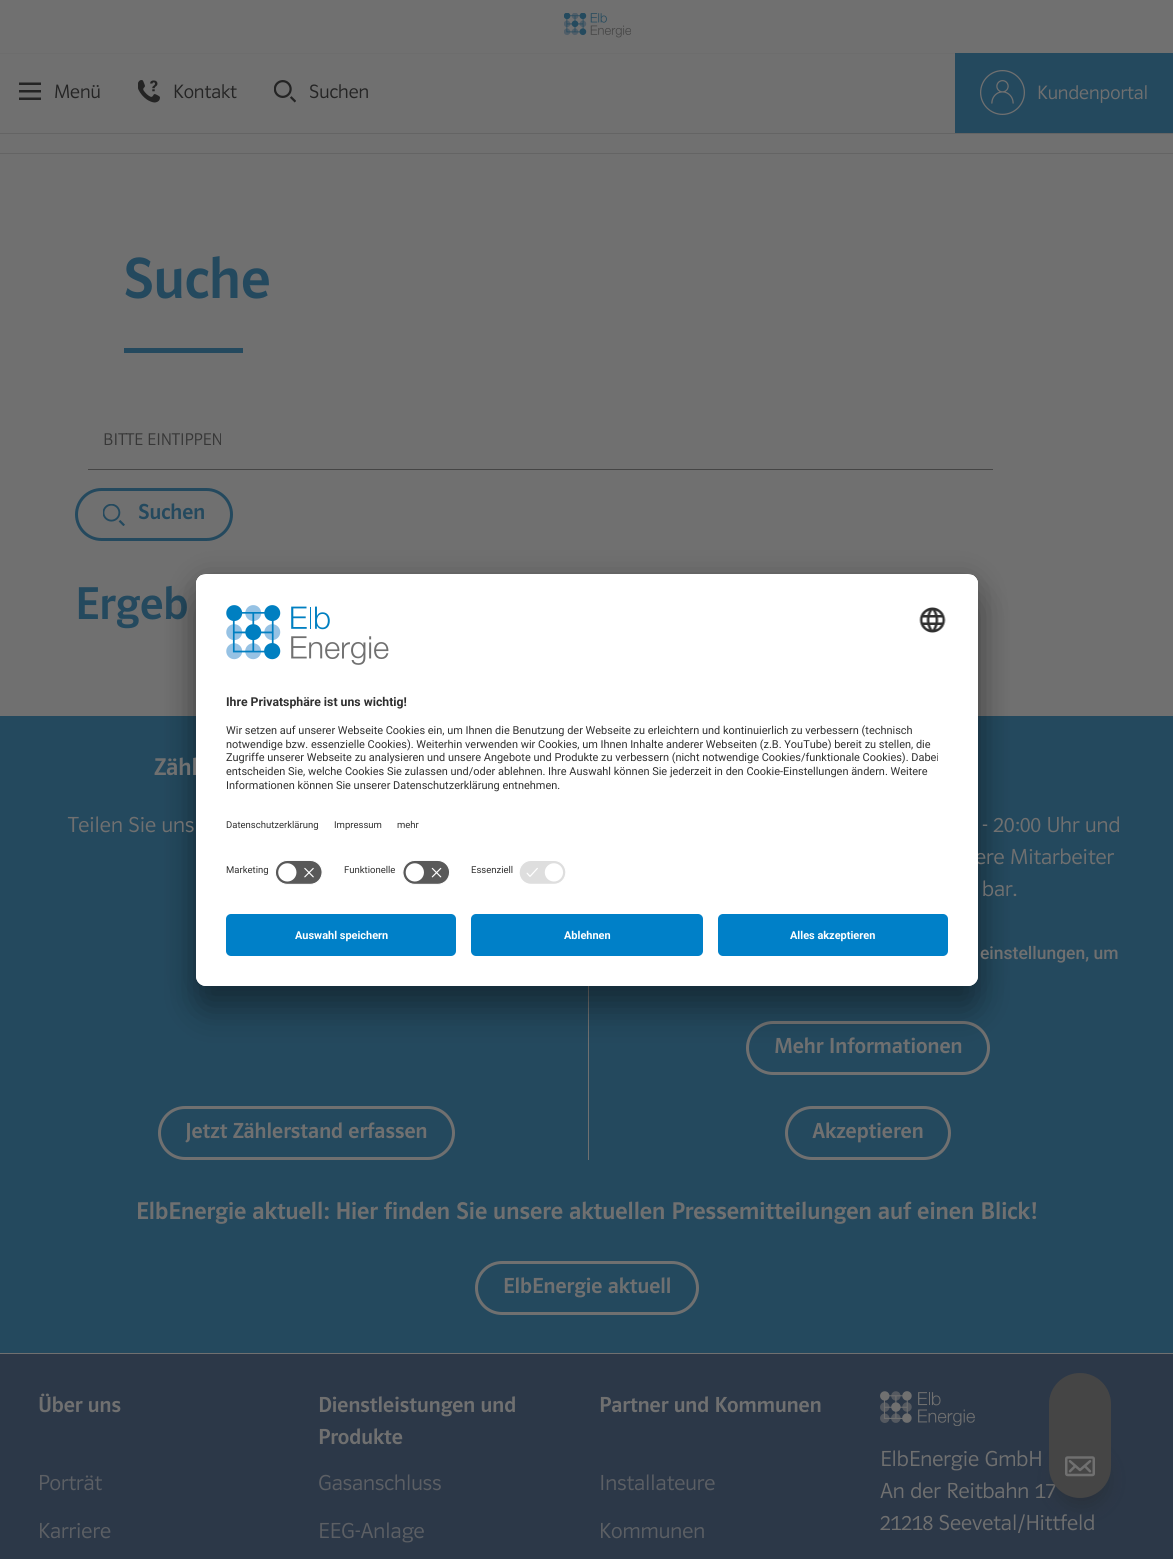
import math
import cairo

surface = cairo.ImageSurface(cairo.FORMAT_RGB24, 1173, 1559)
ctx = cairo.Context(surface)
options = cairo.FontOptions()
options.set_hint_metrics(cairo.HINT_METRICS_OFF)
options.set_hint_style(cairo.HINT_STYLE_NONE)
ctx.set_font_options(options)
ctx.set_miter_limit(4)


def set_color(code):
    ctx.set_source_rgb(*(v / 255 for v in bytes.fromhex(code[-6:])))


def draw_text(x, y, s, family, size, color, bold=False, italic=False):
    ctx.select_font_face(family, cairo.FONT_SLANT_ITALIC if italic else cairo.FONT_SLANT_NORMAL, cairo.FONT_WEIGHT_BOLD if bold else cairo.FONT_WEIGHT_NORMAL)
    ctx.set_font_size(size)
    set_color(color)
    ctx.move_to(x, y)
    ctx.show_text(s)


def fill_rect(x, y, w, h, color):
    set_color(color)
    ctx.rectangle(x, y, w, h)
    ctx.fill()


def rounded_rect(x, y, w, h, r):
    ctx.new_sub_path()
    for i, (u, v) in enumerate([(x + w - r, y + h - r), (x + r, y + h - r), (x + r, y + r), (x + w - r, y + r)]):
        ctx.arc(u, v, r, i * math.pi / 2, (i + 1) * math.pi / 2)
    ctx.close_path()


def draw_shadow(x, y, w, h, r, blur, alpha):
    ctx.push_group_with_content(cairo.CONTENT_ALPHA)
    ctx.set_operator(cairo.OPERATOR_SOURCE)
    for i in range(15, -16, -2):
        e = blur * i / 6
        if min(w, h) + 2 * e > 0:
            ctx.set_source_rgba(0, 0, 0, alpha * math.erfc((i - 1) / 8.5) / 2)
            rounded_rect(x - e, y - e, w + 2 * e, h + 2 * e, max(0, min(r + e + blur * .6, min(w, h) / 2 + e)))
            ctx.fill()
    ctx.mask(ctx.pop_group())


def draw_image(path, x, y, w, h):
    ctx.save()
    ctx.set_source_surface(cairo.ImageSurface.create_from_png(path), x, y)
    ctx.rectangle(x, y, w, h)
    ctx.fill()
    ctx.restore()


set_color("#707070")
ctx.paint()
draw_image("assets/img1.png", 564, 13, 67, 25)
fill_rect(0, 53, 955, 1, "#6d6d6d")
draw_image("assets/img2.png", 19, 82, 22, 18)
draw_text(54, 98, "Menü", "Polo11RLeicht", 20, "#242424")
draw_image("assets/img3.png", 138, 80, 22, 23)
draw_text(173, 98, "Kontakt", "Polo11RLeicht", 20, "#242424")
draw_image("assets/img4.png", 274, 80, 22, 23)
draw_text(309, 98, "Suchen", "Polo11RLeicht", 20, "#242424")
fill_rect(955, 53, 218, 80, "#24495e")
draw_image("assets/img5.png", 980, 70, 45, 45)
draw_text(1037, 99, "Kundenportal", "Polo11RLeicht", 20, "#707070")
fill_rect(0, 133, 1173, 1, "#646464")
fill_rect(0, 153, 1173, 1, "#646464")
draw_text(123, 298, "Suche", "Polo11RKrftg", 60, "#24495e")
fill_rect(124, 348, 119, 5, "#24495e")
draw_text(103, 445, "BITTE EINTIPPEN", "Polo11RLeicht", 17.5, "#373737")
fill_rect(88, 469, 905, 1, "#454545")
rounded_rect(76.5, 489.5, 155, 50, 25)
set_color("#24495e")
ctx.set_line_width(3)
ctx.stroke()
draw_image("assets/img6.png", 103, 504, 22, 22)
draw_text(138, 519, "Suchen", "Polo11RKrftg", 22.5, "#24495e")
draw_text(75, 619, "Ergeb", "Polo11RKrftg", 47.5, "#24495e")
fill_rect(0, 716, 1173, 637, "#24495e")
fill_rect(588, 986, 1, 174, "#707070")
rounded_rect(747.5, 1022.5, 241, 51, 25.5)
ctx.stroke()
set_color("#000000")
draw_shadow(196, 599, 782, 412, 10, 17.5, 0.3)
draw_shadow(196, 580, 782, 413, 10, 16, 0.22)
draw_text(154, 775, "Zähl", "Polo11RKrftg", 25, "#707070")
draw_text(975, 864, "ere Mitarbeiter", "Polo11RLeicht", 22.5, "#707070")
set_color("#ffffff")
rounded_rect(196, 574, 782, 412, 10)
ctx.fill()
ctx.save()
rounded_rect(196, 574, 782, 412, 10)
ctx.clip()
ctx.new_path()
ctx.move_to(206, 574)
ctx.line_to(968, 574)
ctx.curve_to(973.5, 574, 978, 578.5, 978, 584)
ctx.line_to(978, 904)
ctx.line_to(196, 904)
ctx.line_to(196, 584)
ctx.curve_to(196, 578.5, 200.5, 574, 206, 574)
ctx.close_path()
ctx.clip()
fill_rect(196, 575, 782, 329, "#ffffff")
fill_rect(196, 575, 782, 279, "#ffffff")
ctx.restore()
draw_image("assets/img7.png", 226, 605, 163, 60)
draw_image("assets/img8.png", 919, 607, 27, 26)
draw_text(226, 706, "Ihre Privatsphäre ist uns wichtig!", "Roboto", 12.25, "#303030", bold=True)
draw_text(226, 734, "Wir setzen auf unserer Webseite Cookies ein, um Ihnen die Benutzung der Webseite zu erleichtern und kontinuierlich zu verbessern (technisch", "Roboto", 10.95, "#303030")
draw_text(226, 748, "notwendige bzw. essenzielle Cookies). Weiterhin verwenden wir Cookies, um Ihnen Inhalte anderer Webseiten (z.B. YouTube) bereit zu stellen, die", "Roboto", 10.95, "#303030")
draw_text(226, 761, "Zugriffe unserer Webseite zu analysieren und unsere Angebote und Produkte zu verbessern (nicht notwendige Cookies/funktionale Cookies). Dabei", "Roboto", 10.95, "#303030")
draw_text(226, 775, "entscheiden Sie, welche Cookies Sie zulassen und/oder ablehnen. Ihre Auswahl können Sie jederzeit in den Cookie-Einstellungen ändern. Weitere", "Roboto", 10.95, "#303030")
draw_text(226, 789, "Informationen können Sie unserer Datenschutzerklärung entnehmen.", "Roboto", 10.95, "#303030")
draw_text(226, 828, "Datenschutzerklärung", "Roboto", 9.5, "#303030")
draw_text(334, 828, "Impressum", "Roboto", 9.5, "#303030")
draw_text(397, 828, "mehr", "Roboto", 9.5, "#303030")
draw_text(226, 873, "Marketing", "Roboto", 9.5, "#303030")
draw_image("assets/img9.png", 275, 860, 48, 25)
draw_text(344, 873, "Funktionelle", "Roboto", 9.5, "#303030")
draw_image("assets/img10.png", 402, 860, 48, 25)
draw_text(471, 873, "Essenziell", "Roboto", 9.5, "#303030")
draw_image("assets/img11.png", 519, 861, 47, 23)
set_color("#ffffff")
ctx.new_path()
ctx.move_to(196, 904)
ctx.line_to(978, 904)
ctx.line_to(978, 976)
ctx.curve_to(978, 981.5, 973.5, 986, 968, 986)
ctx.line_to(206, 986)
ctx.curve_to(200.5, 986, 196, 981.5, 196, 976)
ctx.close_path()
ctx.fill()
set_color("#0080c8")
rounded_rect(226, 914, 230, 42, 5)
ctx.fill()
draw_text(295, 939, "Auswahl speichern", "Roboto", 10.95, "#ffffff", bold=True)
set_color("#0080c8")
rounded_rect(471, 914, 232, 42, 5)
ctx.fill()
draw_text(564, 939, "Ablehnen", "Roboto", 10.95, "#ffffff", bold=True)
set_color("#0080c8")
rounded_rect(718, 914, 230, 42, 5)
ctx.fill()
draw_text(790, 939, "Alles akzeptieren", "Roboto", 10.95, "#ffffff", bold=True)
draw_text(68, 832, "Teilen Sie uns", "Polo11RLeicht", 22.5, "#707070")
rounded_rect(159.5, 1107.5, 294, 51, 25.5)
ctx.stroke()
draw_text(185, 1138, "Jetzt Zählerstand erfassen", "Polo11RKrftg", 22.5, "#707070")
draw_text(982, 832, "- 20:00 Uhr und", "Polo11RLeicht", 22.5, "#707070")
draw_text(982, 896, "bar.", "Polo11RLeicht", 22.5, "#707070")
draw_text(980, 959, "einstellungen, um", "Roboto Medium", 17.5, "#707070")
draw_text(774, 1053, "Mehr Informationen", "Polo11RKrftg", 22.5, "#707070")
rounded_rect(786.5, 1107.5, 163, 51, 25.5)
ctx.stroke()
draw_text(812, 1138, "Akzeptieren", "Polo11RKrftg", 22.5, "#707070")
draw_text(136, 1219, "ElbEnergie aktuell: Hier finden Sie unsere aktuellen Pressemitteilungen auf einen Blick!", "Polo11RKrftg", 25, "#707070")
rounded_rect(476.5, 1262.5, 221, 51, 25.5)
ctx.stroke()
draw_text(503, 1293, "ElbEnergie aktuell", "Polo11RKrftg", 22.5, "#707070")
fill_rect(0, 1354, 1173, 205, "#2c3848")
draw_text(38, 1412, "Über uns", "Polo11RKrftg", 22.5, "#707070")
draw_text(38, 1490, "Porträt", "Polo11RLeicht", 22.5, "#5c5f64")
draw_text(38, 1538, "Karriere", "Polo11RLeicht", 22.5, "#5c5f64")
draw_text(318, 1412, "Dienstleistungen und", "Polo11RKrftg", 22.5, "#707070")
draw_text(318, 1444, "Produkte", "Polo11RKrftg", 22.5, "#707070")
draw_text(318, 1490, "Gasanschluss", "Polo11RLeicht", 22.5, "#5c5f64")
draw_text(318, 1538, "EEG-Anlage", "Polo11RLeicht", 22.5, "#5c5f64")
draw_text(599, 1412, "Partner und Kommunen", "Polo11RKrftg", 22.5, "#707070")
draw_text(599, 1490, "Installateure", "Polo11RLeicht", 22.5, "#5c5f64")
draw_text(599, 1538, "Kommunen", "Polo11RLeicht", 22.5, "#5c5f64")
draw_image("assets/img12.png", 880, 1391, 95, 35)
draw_text(880, 1466, "ElbEnergie GmbH", "Polo11RLeicht", 22.5, "#707070")
draw_text(880, 1498, "An der Reitbahn 17", "Polo11RLeicht", 22.5, "#707070")
draw_text(880, 1530, "21218 Seevetal/Hittfeld", "Polo11RLeicht", 22.5, "#707070")
set_color("#242424")
draw_shadow(1063, 1461, 37, 38, 18.5, 12, 0.6)
set_color("#454545")
rounded_rect(1049, 1373, 62, 125, 31)
ctx.fill()
draw_image("assets/img13.png", 1065, 1456, 30, 21)
surface.write_to_png("output.png")
